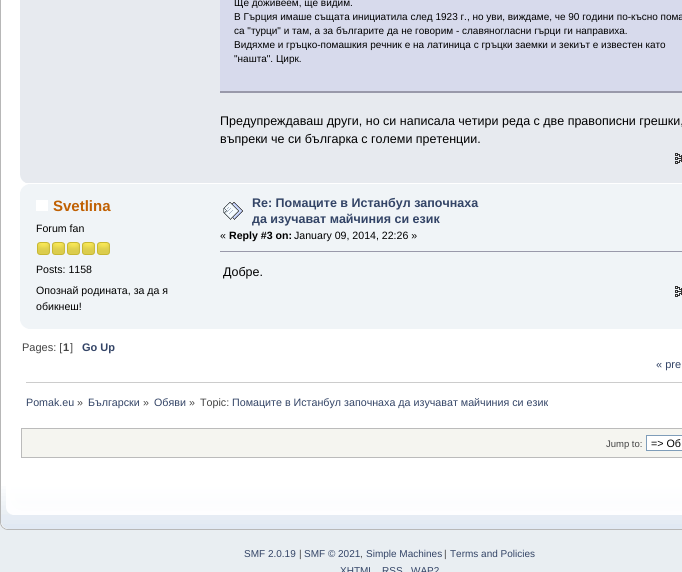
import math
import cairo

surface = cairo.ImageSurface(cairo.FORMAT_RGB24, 682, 572)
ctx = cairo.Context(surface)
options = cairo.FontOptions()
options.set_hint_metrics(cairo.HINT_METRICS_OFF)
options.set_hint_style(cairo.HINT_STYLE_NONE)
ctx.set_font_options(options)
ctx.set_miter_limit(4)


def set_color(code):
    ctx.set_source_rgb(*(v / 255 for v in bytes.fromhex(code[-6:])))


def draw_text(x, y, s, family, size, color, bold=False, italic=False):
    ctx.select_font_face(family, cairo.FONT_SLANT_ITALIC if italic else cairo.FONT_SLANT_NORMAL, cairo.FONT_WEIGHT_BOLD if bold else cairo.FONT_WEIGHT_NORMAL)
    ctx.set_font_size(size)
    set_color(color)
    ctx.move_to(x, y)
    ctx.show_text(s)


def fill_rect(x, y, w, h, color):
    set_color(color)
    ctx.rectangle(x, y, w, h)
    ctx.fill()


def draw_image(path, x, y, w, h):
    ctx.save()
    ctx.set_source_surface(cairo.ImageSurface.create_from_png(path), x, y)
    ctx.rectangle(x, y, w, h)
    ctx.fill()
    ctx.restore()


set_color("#e9eef2")
ctx.paint()
fill_rect(1, 0, 681, 486, "#ffffff")
fill_rect(0, 0, 1, 486, "#b7b7b7")
fill_rect(20, 0, 662, 183, "#e7eaef")
fill_rect(220, 0, 462, 91, "#d7daec")
fill_rect(220, 91, 462, 2, "#9999aa")
draw_text(234, 6, "Ще доживеем, ще видим.", "Liberation Sans", 10, "#000000")
draw_text(234, 20, "В Гърция имаше същата инициатила след 1923 г., но уви, виждаме, че 90 години по-късно пома", "Liberation Sans", 10, "#000000")
draw_text(234, 34, "са \"турци\" и там, а за българите да не говорим - славяногласни гърци ги направиха.", "Liberation Sans", 10, "#000000")
draw_text(234, 48, "Видяхме и гръцко-помашкия речник е на латиница с гръцки заемки и зекиът е известен като", "Liberation Sans", 10, "#000000")
draw_text(234, 62, "\"нашта\". Цирк.", "Liberation Sans", 10, "#000000")
draw_text(220, 125, "Предупреждаваш други, но си написала четири реда с две правописни грешки,", "Liberation Sans", 12.5, "#000000")
draw_text(220, 143, "въпреки че си българка с големи претенции.", "Liberation Sans", 12.5, "#000000")
draw_image("assets/img1.png", 675, 153, 7, 11)
draw_image("assets/img2.png", 20, 175, 6, 8)
fill_rect(20, 184, 662, 145, "#f0f4f7")
draw_image("assets/img3.png", 20, 184, 8, 8)
fill_rect(36, 200, 12, 11, "#ffffff")
draw_text(53, 211, "Svetlina", "Liberation Sans", 15, "#c06002", bold=True)
draw_text(36, 232, "Forum fan", "Liberation Sans", 10.6, "#000000")
draw_image("assets/img4.png", 37, 242, 13, 13)
draw_image("assets/img4.png", 52, 242, 13, 13)
draw_image("assets/img4.png", 67, 242, 13, 13)
draw_image("assets/img4.png", 82, 242, 13, 13)
draw_image("assets/img4.png", 97, 242, 13, 13)
draw_text(36, 273, "Posts: 1158", "Liberation Sans", 10.6, "#000000")
draw_text(36, 294, "Опознай родината, за да я", "Liberation Sans", 10.6, "#000000")
draw_text(36, 310, "обикнеш!", "Liberation Sans", 10.6, "#000000")
draw_image("assets/img5.png", 223, 202, 20, 18)
draw_text(252, 207, "Re: Помаците в Истанбул започнаха", "Liberation Sans", 12.5, "#334466", bold=True)
draw_text(252, 223, "да изучават майчиния си език", "Liberation Sans", 12.5, "#334466", bold=True)
draw_text(220, 239, "«", "Liberation Sans", 10.6, "#000000")
draw_text(229, 239, "Reply #3 on:", "Liberation Sans", 10.6, "#000000", bold=True)
draw_text(294, 239, "January 09, 2014, 22:26 »", "Liberation Sans", 10.6, "#000000")
fill_rect(220, 251, 462, 1, "#9999aa")
draw_text(223, 276, "Добре.", "Liberation Sans", 12.5, "#000000")
draw_image("assets/img6.png", 675, 286, 7, 11)
draw_image("assets/img7.png", 20, 321, 8, 8)
draw_text(22, 351, "Pages: [", "Liberation Sans", 11, "#444444")
draw_text(63, 351, "1", "Liberation Sans", 11, "#444444", bold=True)
draw_text(70, 351, "]", "Liberation Sans", 11, "#444444")
draw_text(82, 351, "Go Up", "Liberation Sans", 11, "#334466", bold=True)
draw_text(656, 368, "« pre", "Liberation Sans", 11, "#334466")
fill_rect(26, 382, 656, 1, "#cccccc")
draw_text(26, 406, "Pomak.eu", "Liberation Sans", 10.7, "#334466")
draw_text(77, 406, "»", "Liberation Sans", 10.7, "#444444")
draw_text(88, 406, "Български", "Liberation Sans", 10.7, "#334466")
draw_text(143, 406, "»", "Liberation Sans", 10.7, "#444444")
draw_text(154, 406, "Oбяви", "Liberation Sans", 10.7, "#334466")
draw_text(189, 406, "»", "Liberation Sans", 10.7, "#444444")
draw_text(200, 406, "Topic:", "Liberation Sans", 10.7, "#444444")
draw_text(232, 406, "Помаците в Истанбул започнаха да изучават майчиния си език", "Liberation Sans", 10.7, "#334466")
set_color("#f5f5f0")
ctx.rectangle(21.5, 428.5, 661, 29)
ctx.fill_preserve()
set_color("#bbbbbb")
ctx.set_line_width(1)
ctx.stroke()
draw_text(606, 447, "Jump to:", "Liberation Sans", 9.5, "#444444")
set_color("#ffffff")
ctx.rectangle(646.5, 435.5, 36, 15)
ctx.fill_preserve()
set_color("#7f9db9")
ctx.stroke()
draw_text(651, 447, "=> Oб", "Liberation Sans", 10.7, "#000000")
draw_image("assets/img8.png", 0, 486, 682, 44)
draw_text(244, 557, "SMF 2.0.19", "Liberation Sans", 10, "#334466")
draw_text(299, 557, "|", "Liberation Sans", 10, "#444444")
draw_text(304, 557, "SMF © 2021", "Liberation Sans", 10, "#334466")
draw_text(360, 557, ",", "Liberation Sans", 10, "#444444")
draw_text(366, 557, "Simple Machines", "Liberation Sans", 10, "#334466")
draw_text(444, 557, "|", "Liberation Sans", 10, "#444444")
draw_text(450, 557, "Terms and Policies", "Liberation Sans", 10, "#334466")
draw_text(340, 574, "XHTML", "Liberation Sans", 10, "#334466")
draw_text(382, 574, "RSS", "Liberation Sans", 10, "#334466")
draw_text(411, 574, "WAP2", "Liberation Sans", 10, "#334466")
surface.write_to_png("output.png")
